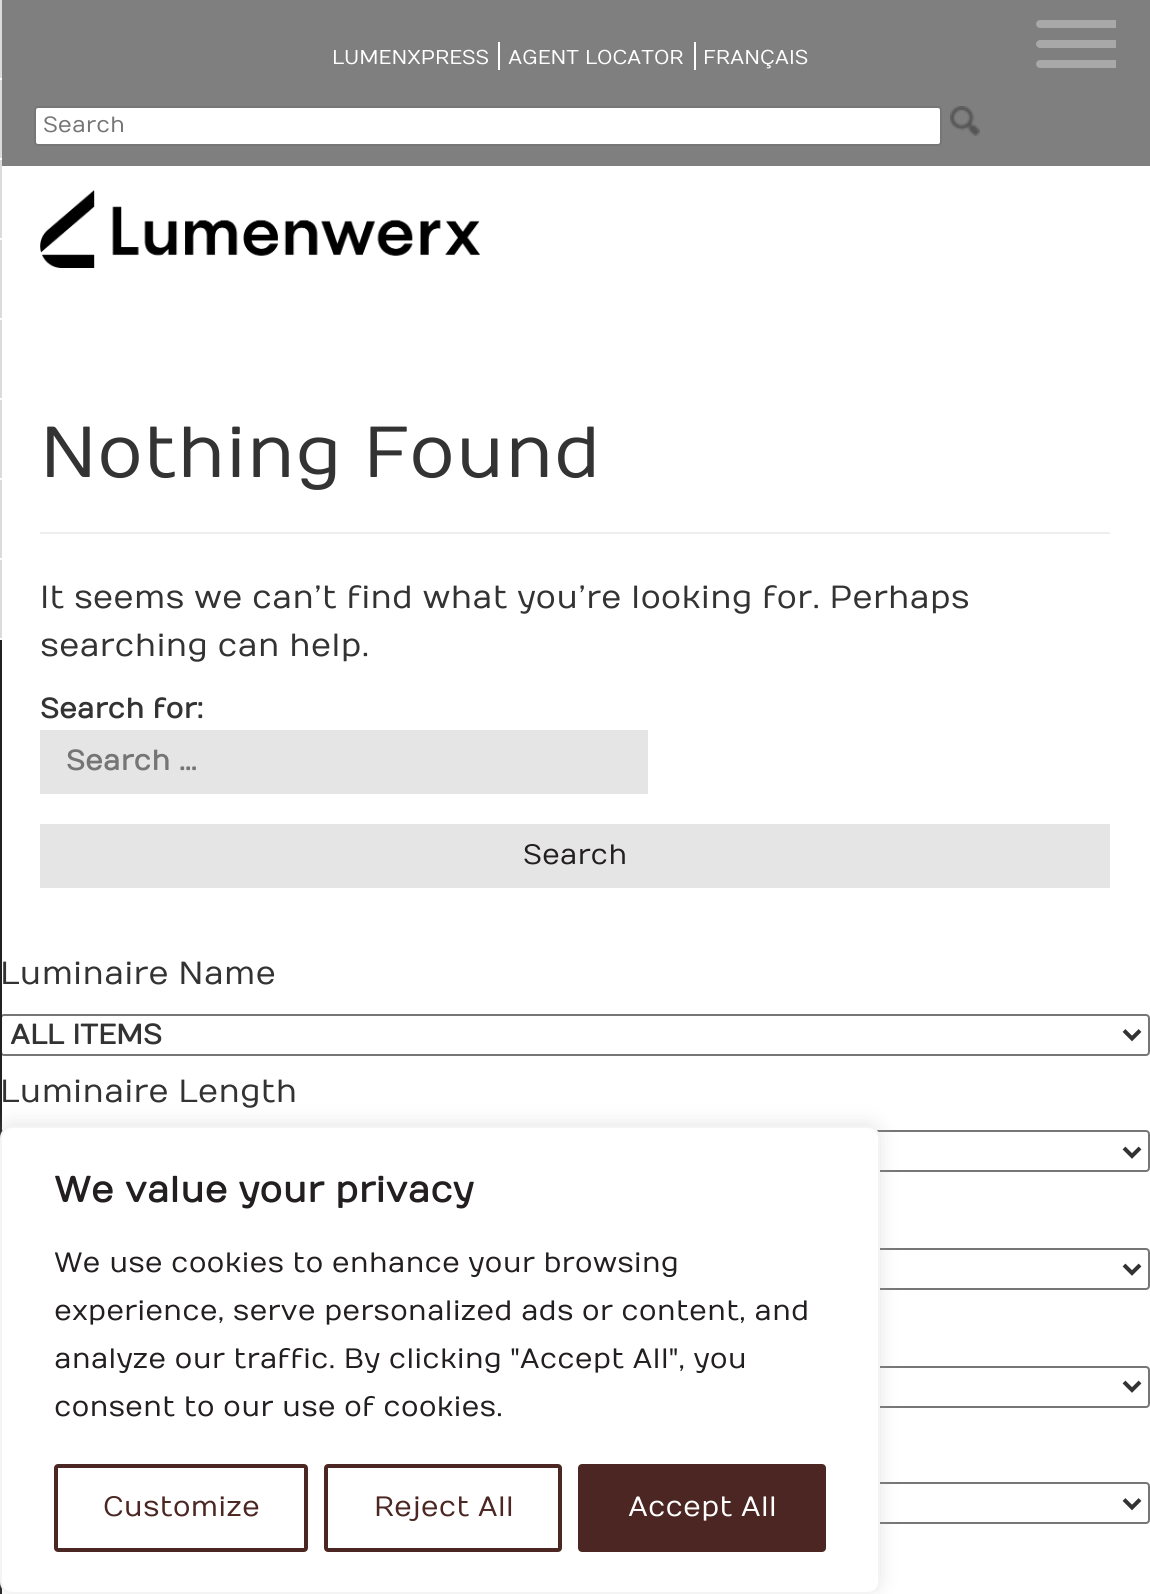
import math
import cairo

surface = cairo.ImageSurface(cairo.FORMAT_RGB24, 1150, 1594)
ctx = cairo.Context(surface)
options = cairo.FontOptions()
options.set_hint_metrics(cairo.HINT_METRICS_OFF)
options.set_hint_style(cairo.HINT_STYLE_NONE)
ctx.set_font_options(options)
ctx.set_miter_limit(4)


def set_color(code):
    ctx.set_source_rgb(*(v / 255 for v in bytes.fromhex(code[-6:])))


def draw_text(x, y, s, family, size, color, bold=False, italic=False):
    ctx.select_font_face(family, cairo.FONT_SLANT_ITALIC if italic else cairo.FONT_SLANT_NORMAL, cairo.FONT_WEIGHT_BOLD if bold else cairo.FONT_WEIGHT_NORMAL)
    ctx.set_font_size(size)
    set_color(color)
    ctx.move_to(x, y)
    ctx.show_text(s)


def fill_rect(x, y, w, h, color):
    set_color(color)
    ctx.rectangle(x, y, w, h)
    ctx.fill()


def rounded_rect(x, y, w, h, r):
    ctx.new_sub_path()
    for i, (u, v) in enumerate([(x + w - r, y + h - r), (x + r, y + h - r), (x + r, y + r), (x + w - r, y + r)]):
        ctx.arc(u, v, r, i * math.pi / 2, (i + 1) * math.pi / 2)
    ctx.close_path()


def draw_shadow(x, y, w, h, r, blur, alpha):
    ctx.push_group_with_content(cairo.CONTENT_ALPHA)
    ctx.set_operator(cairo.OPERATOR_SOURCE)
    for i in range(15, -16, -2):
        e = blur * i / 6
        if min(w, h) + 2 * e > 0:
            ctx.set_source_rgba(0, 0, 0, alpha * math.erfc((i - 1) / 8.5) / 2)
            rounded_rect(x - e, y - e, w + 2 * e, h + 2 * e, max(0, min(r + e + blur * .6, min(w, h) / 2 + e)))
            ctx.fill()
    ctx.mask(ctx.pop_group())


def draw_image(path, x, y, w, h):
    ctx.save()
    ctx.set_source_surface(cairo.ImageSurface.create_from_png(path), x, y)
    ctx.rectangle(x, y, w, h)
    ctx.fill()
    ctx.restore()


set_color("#ffffff")
ctx.paint()
rounded_rect(1, 1015, 1148, 40, 3)
set_color("#767676")
ctx.stroke()
rounded_rect(1, 1131, 1148, 40, 3)
ctx.stroke()
rounded_rect(1, 1249, 1148, 40, 3)
ctx.stroke()
rounded_rect(1, 1367, 1148, 40, 3)
ctx.stroke()
rounded_rect(1, 1483, 1148, 40, 3)
ctx.stroke()
fill_rect(0, 640, 2, 954, "#212121")
fill_rect(0, 0, 2, 640, "#dbdbdb")
fill_rect(0, 78, 2, 2, "#ffffff")
fill_rect(0, 158, 2, 2, "#ffffff")
fill_rect(0, 238, 2, 2, "#ffffff")
fill_rect(0, 318, 2, 2, "#ffffff")
fill_rect(0, 398, 2, 2, "#ffffff")
fill_rect(0, 478, 2, 2, "#ffffff")
fill_rect(0, 558, 2, 2, "#ffffff")
fill_rect(0, 638, 2, 2, "#ffffff")
fill_rect(2, 0, 1148, 166, "#7f7f7f")
set_color("#a8a8a8")
ctx.new_path()
ctx.move_to(1040, 40)
ctx.line_to(1116, 40)
ctx.line_to(1116, 48)
ctx.line_to(1040, 48)
ctx.curve_to(1038, 48, 1036, 46, 1036, 44)
ctx.curve_to(1036, 42, 1038, 40, 1040, 40)
ctx.close_path()
ctx.fill()
ctx.new_path()
ctx.move_to(1040, 20)
ctx.line_to(1116, 20)
ctx.line_to(1116, 28)
ctx.line_to(1040, 28)
ctx.curve_to(1038, 28, 1036, 26, 1036, 24)
ctx.curve_to(1036, 22, 1038, 20, 1040, 20)
ctx.close_path()
ctx.fill()
ctx.new_path()
ctx.move_to(1040, 60)
ctx.line_to(1116, 60)
ctx.line_to(1116, 68)
ctx.line_to(1040, 68)
ctx.curve_to(1038, 68, 1036, 66, 1036, 64)
ctx.curve_to(1036, 62, 1038, 60, 1040, 60)
ctx.close_path()
ctx.fill()
draw_text(332, 64, "LUMENXPRESS", "Numans", 20, "#ffffff")
fill_rect(498, 42, 2, 28, "#ffffff")
draw_text(508, 64, "AGENT LOCATOR", "Numans", 20, "#ffffff")
fill_rect(694, 42, 2, 28, "#ffffff")
draw_text(703, 64, "FRANÇAIS", "Numans", 20, "#ffffff")
rounded_rect(35, 107, 906, 38, 3)
ctx.fill_preserve()
set_color("#767676")
ctx.stroke()
draw_text(43, 132, "Search", "Numans", 22, "#757575")
draw_image("assets/img1.png", 950, 106, 30, 30)
draw_image("assets/img2.png", 40, 190, 440, 78)
fill_rect(40, 532, 1070, 2, "#eeeeee")
draw_text(40, 477, "Nothing Found", "Numans", 72, "#333333")
draw_text(40, 608, "It seems we can’t find what you’re looking for. Perhaps", "Numans", 32, "#333333")
draw_text(40, 656, "searching can help.", "Numans", 32, "#333333")
draw_text(40, 718, "Search for:", "Numans", 28, "#333333", bold=True)
fill_rect(40, 730, 608, 64, "#e5e5e5")
draw_text(66, 770, "Search …", "Numans", 28, "#757575", bold=True)
fill_rect(40, 824, 1070, 64, "#e5e5e5")
draw_text(523, 864, "Search", "Numans", 28, "#231f20")
draw_text(0, 984, "Luminaire Name", "Numans", 32, "#333333")
ctx.new_path()
ctx.move_to(1124, 1030.5)
ctx.line_to(1132, 1038.5)
ctx.line_to(1140, 1030.5)
ctx.set_line_width(4)
ctx.stroke()
draw_text(10, 1044, "ALL ITEMS", "Numans", 28, "#333333", bold=True)
draw_text(0, 1102, "Luminaire Length", "Numans", 32, "#333333")
ctx.new_path()
ctx.move_to(1124, 1148)
ctx.line_to(1132, 1156)
ctx.line_to(1140, 1148)
ctx.stroke()
ctx.new_path()
ctx.move_to(1124, 1265)
ctx.line_to(1132, 1273)
ctx.line_to(1140, 1265)
ctx.stroke()
ctx.new_path()
ctx.move_to(1124, 1382)
ctx.line_to(1132, 1390)
ctx.line_to(1140, 1382)
ctx.stroke()
ctx.new_path()
ctx.move_to(1124, 1499.5)
ctx.line_to(1132, 1507.5)
ctx.line_to(1140, 1499.5)
ctx.stroke()
set_color("#acabab")
draw_shadow(0, 1124, 880, 468, 12, 10, 0.3)
set_color("#ffffff")
rounded_rect(1, 1127, 878, 466, 11)
ctx.fill_preserve()
set_color("#f4f4f4")
ctx.set_line_width(2)
ctx.stroke()
draw_text(54, 1202, "We value your privacy", "Numans", 36, "#231f20", bold=True)
draw_text(54, 1272, "We use cookies to enhance your browsing", "Numans", 28, "#231f20")
draw_text(54, 1320, "experience, serve personalized ads or content, and", "Numans", 28, "#231f20")
draw_text(54, 1368, "analyze our traffic. By clicking \"Accept All\", you", "Numans", 28, "#231f20")
draw_text(54, 1416, "consent to our use of cookies.", "Numans", 28, "#231f20")
rounded_rect(56, 1466, 250, 84, 2)
set_color("#4b2622")
ctx.set_line_width(4)
ctx.stroke()
draw_text(103, 1516, "Customize", "Numans", 28, "#4b2622")
rounded_rect(326, 1466, 234, 84, 2)
ctx.stroke()
draw_text(374, 1516, "Reject All", "Numans", 28, "#4b2622")
rounded_rect(580, 1466, 244, 84, 2)
ctx.fill_preserve()
ctx.stroke()
draw_text(628, 1516, "Accept All", "Numans", 28, "#ffffff")
surface.write_to_png("output.png")
